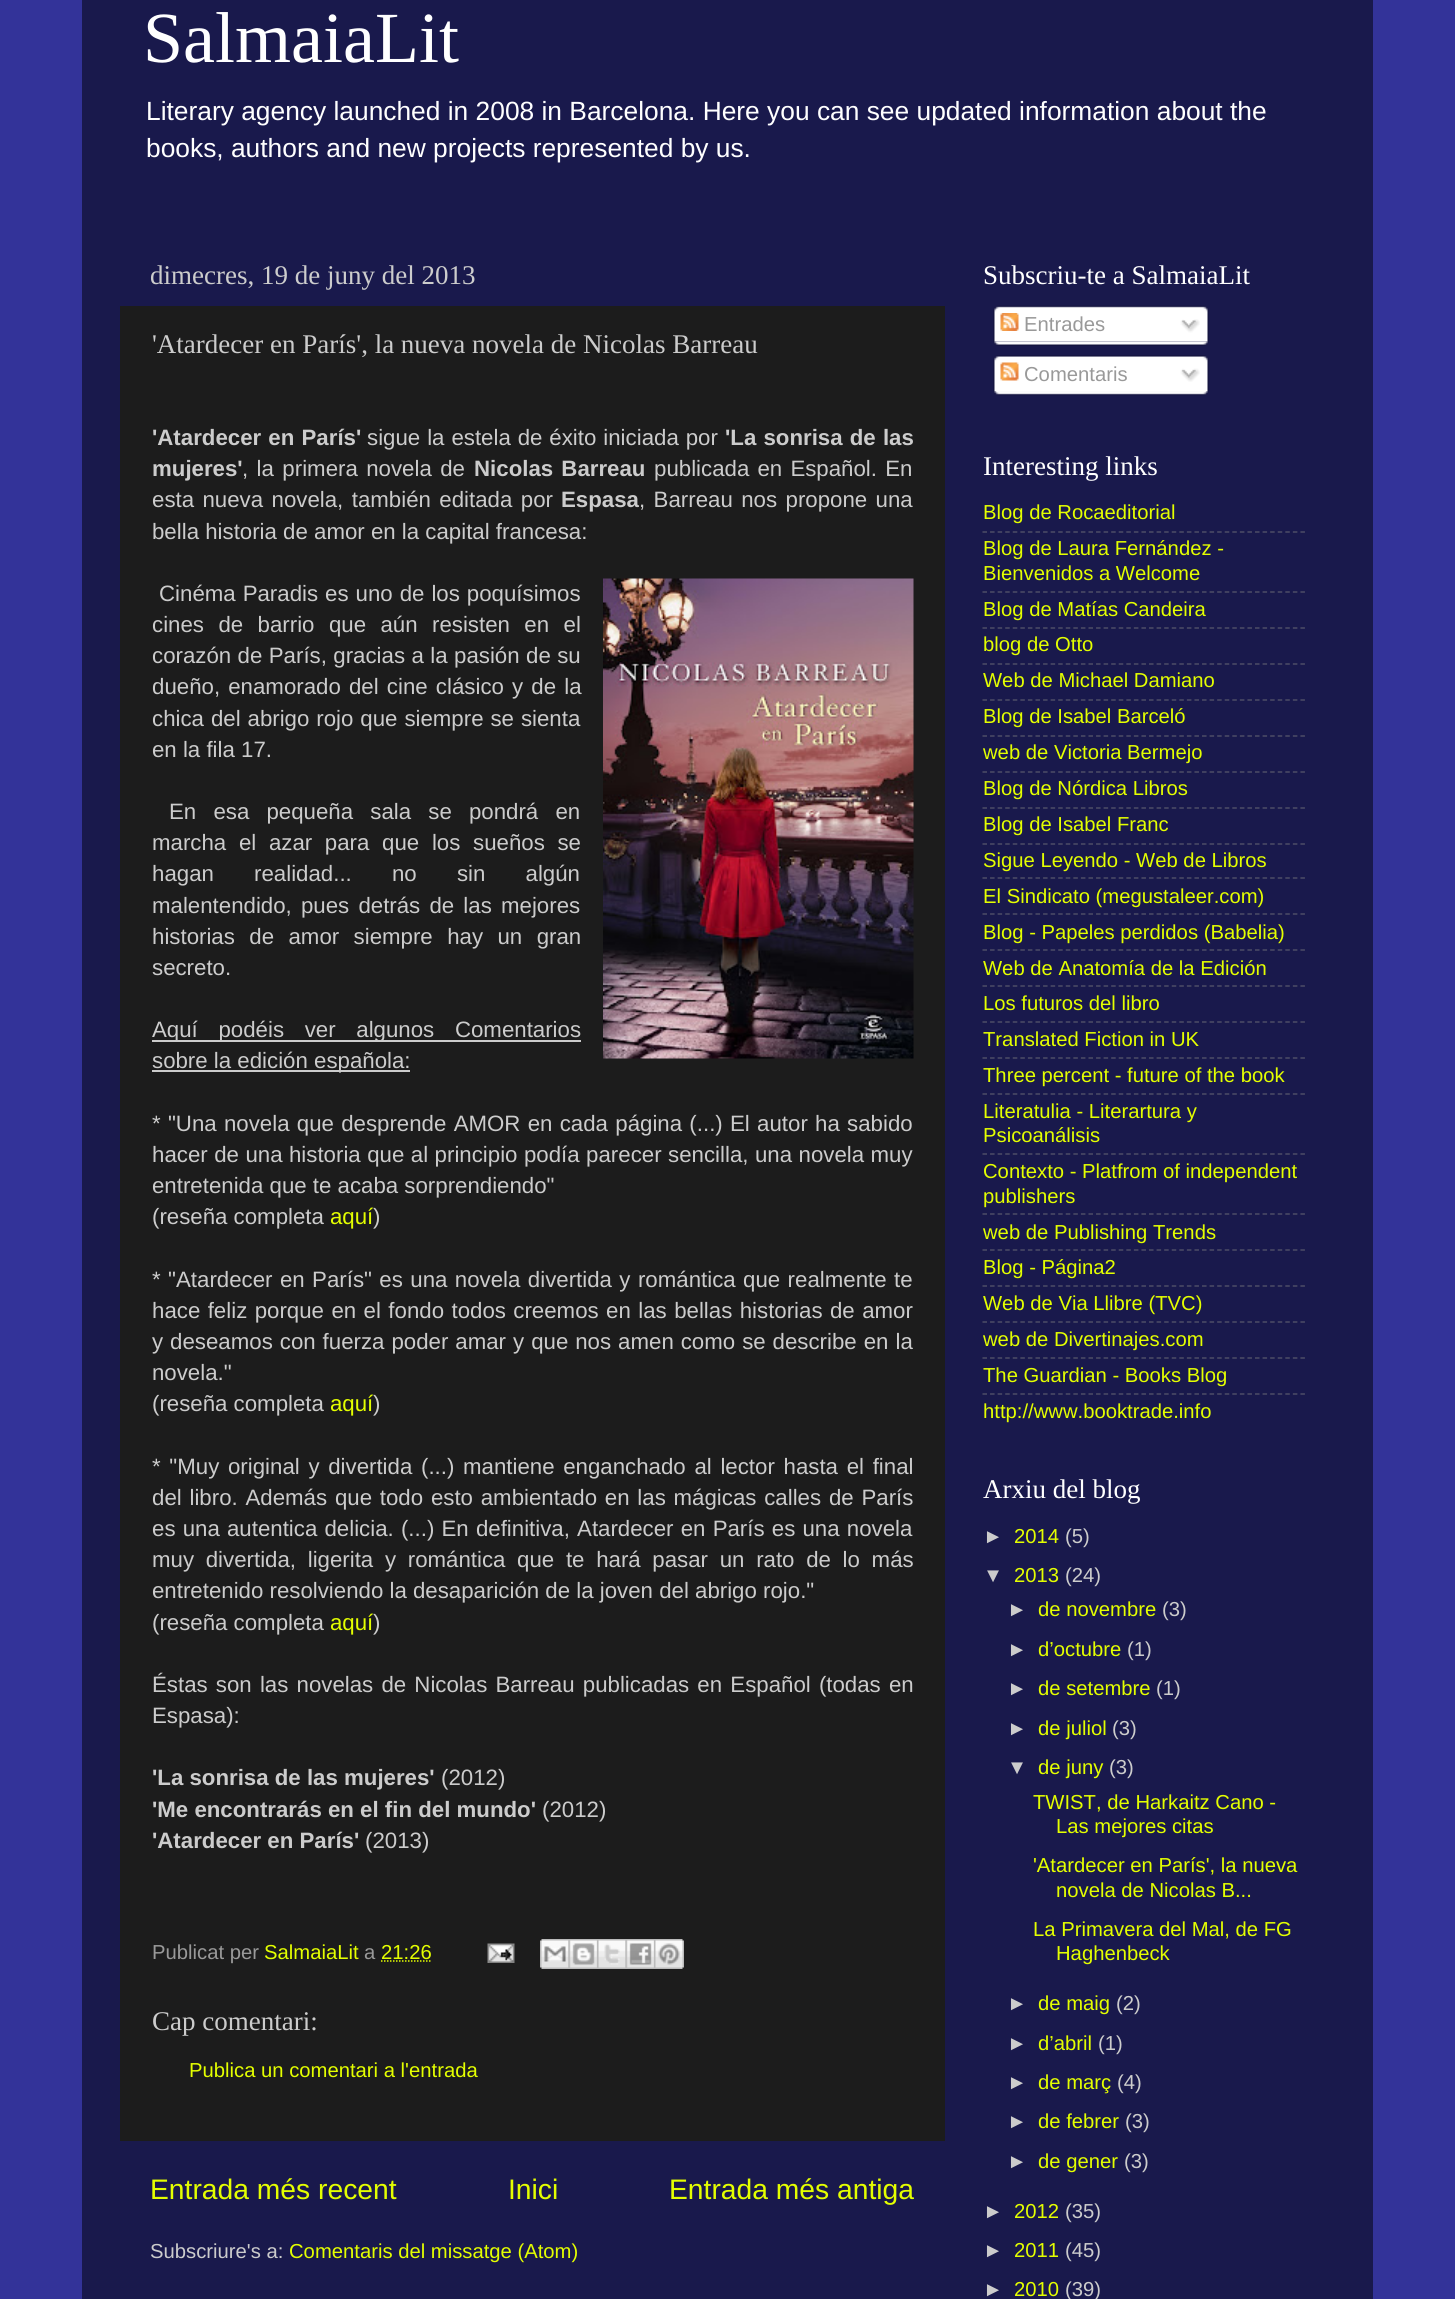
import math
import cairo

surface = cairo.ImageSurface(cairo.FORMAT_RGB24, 1455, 2299)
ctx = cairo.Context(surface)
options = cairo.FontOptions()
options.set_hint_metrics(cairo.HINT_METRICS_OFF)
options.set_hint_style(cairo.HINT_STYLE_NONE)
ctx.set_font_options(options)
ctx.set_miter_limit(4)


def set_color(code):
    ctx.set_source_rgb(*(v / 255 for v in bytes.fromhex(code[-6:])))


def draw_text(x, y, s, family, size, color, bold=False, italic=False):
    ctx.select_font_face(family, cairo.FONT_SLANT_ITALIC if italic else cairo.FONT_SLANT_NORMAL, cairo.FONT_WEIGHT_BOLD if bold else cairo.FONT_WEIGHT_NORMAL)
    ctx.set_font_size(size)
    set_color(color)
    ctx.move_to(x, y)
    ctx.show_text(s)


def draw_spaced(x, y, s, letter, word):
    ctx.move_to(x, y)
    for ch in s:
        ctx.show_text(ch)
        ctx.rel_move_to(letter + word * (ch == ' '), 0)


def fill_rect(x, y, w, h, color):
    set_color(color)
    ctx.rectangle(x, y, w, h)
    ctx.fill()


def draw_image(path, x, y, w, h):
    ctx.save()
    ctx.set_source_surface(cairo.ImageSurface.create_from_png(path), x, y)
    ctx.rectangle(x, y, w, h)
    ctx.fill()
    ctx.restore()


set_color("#333399")
ctx.paint()
ctx.set_source_rgba(0, 0, 0, 0.5)
ctx.rectangle(82, 0, 1291, 2299)
ctx.fill()
draw_text(143, 62, "SalmaiaLit", "Liberation Serif", 72, "#ffffff")
draw_text(146, 120, "Literary agency launched in 2008 in Barcelona. Here you can see updated information about the", "Liberation Sans", 26.35, "#ffffff")
draw_text(146, 157, "books, authors and new projects represented by us.", "Liberation Sans", 26.35, "#ffffff")
draw_text(150, 284, "dimecres, 19 de juny del 2013", "Liberation Serif", 27, "#cccccc")
fill_rect(120, 306, 825, 1835, "#1c1c1c")
draw_text(152, 353, "'Atardecer en París', la nueva novela de Nicolas Barreau", "Liberation Serif", 27, "#cccccc")
ctx.select_font_face("Liberation Sans", cairo.FONT_SLANT_NORMAL, cairo.FONT_WEIGHT_BOLD)
ctx.set_font_size(22.25)
draw_spaced(152, 445, "'Atardecer en París'", 0, 1)
ctx.select_font_face("Liberation Sans")
draw_spaced(367, 445, "sigue la estela de éxito iniciada por", 0, 0.75)
ctx.select_font_face("Liberation Sans", cairo.FONT_SLANT_NORMAL, cairo.FONT_WEIGHT_BOLD)
draw_spaced(725, 445, "'La sonrisa de las", 0, 1)
draw_text(152, 476, "mujeres'", "Liberation Sans", 22.25, "#cccccc", bold=True)
ctx.select_font_face("Liberation Sans")
draw_spaced(242, 476, ", la primera novela de", 0, 2.25)
ctx.select_font_face("Liberation Sans", cairo.FONT_SLANT_NORMAL, cairo.FONT_WEIGHT_BOLD)
draw_spaced(474, 476, "Nicolas Barreau", 0, 2)
ctx.select_font_face("Liberation Sans")
draw_spaced(654, 476, "publicada en Español. En", 0, 2)
draw_spaced(152, 507, "esta nueva novela, también editada por", 0, 2.25)
draw_text(561, 507, "Espasa", "Liberation Sans", 22.25, "#cccccc", bold=True)
ctx.select_font_face("Liberation Sans")
draw_spaced(639, 507, ", Barreau nos propone una", 0, 2.25)
draw_text(152, 539, "bella historia de amor en la capital francesa:", "Liberation Sans", 22.25, "#cccccc")
draw_spaced(159, 601, "Cinéma Paradis es uno de los poquísimos", 0, 0.8)
draw_image("assets/img1.png", 603, 578, 311, 481)
draw_spaced(152, 632, "cines de barrio que aún resisten en el", 0, 8.25)
draw_spaced(152, 663, "corazón de París, gracias a la pasión de su", 0, 0.25)
draw_spaced(152, 694, "dueño, enamorado del cine clásico y de la", 0, 2)
draw_spaced(152, 726, "chica del abrigo rojo que siempre se sienta", 0, 0.75)
draw_text(152, 757, "en la fila 17.", "Liberation Sans", 22.25, "#cccccc")
draw_spaced(169, 819, "En esa pequeña sala se pondrá en", 0, 11)
draw_spaced(152, 850, "marcha el azar para que los sueños se", 0, 6.5)
draw_spaced(152, 881, "hagan realidad... no sin algún", 0, 34)
draw_spaced(152, 913, "malentendido, pues detrás de las mejores", 0, 3)
draw_spaced(152, 944, "historias de amor siempre hay un gran", 0, 8.25)
draw_text(152, 975, "secreto.", "Liberation Sans", 22.25, "#cccccc")
fill_rect(152, 1040, 429, 2, "#cccccc")
draw_spaced(152, 1037, "Aquí podéis ver algunos Comentarios", 0, 14.5)
fill_rect(152, 1070, 258, 2, "#cccccc")
draw_text(152, 1068, "sobre la edición española:", "Liberation Sans", 22.25, "#cccccc")
draw_spaced(152, 1131, "* \"Una novela que desprende AMOR en cada página (...) El autor ha sabido", 0, 1.1)
draw_spaced(152, 1162, "hacer de una historia que al principio podía parecer sencilla, una novela muy", 0, 0.3)
draw_text(152, 1193, "entretenida que te acaba sorprendiendo\"", "Liberation Sans", 22.25, "#cccccc")
draw_text(152, 1224, "(reseña completa", "Liberation Sans", 22.25, "#cccccc")
draw_text(330, 1224, "aquí", "Liberation Sans", 22.25, "#e4ff00")
draw_text(373, 1224, ")", "Liberation Sans", 22.25, "#cccccc")
draw_spaced(152, 1287, "* \"Atardecer en París\" es una novela divertida y romántica que realmente te", 0, 1.25)
draw_spaced(152, 1318, "hace feliz porque en el fondo todos creemos en las bellas historias de amor", 0, 1.25)
draw_spaced(152, 1349, "y deseamos con fuerza poder amar y que nos amen como se describe en la", 0, 0.8)
draw_text(152, 1380, "novela.\"", "Liberation Sans", 22.25, "#cccccc")
draw_text(152, 1411, "(reseña completa", "Liberation Sans", 22.25, "#cccccc")
draw_text(330, 1411, "aquí", "Liberation Sans", 22.25, "#e4ff00")
draw_text(373, 1411, ")", "Liberation Sans", 22.25, "#cccccc")
draw_spaced(152, 1474, "* \"Muy original y divertida (...) mantiene enganchado al lector hasta el final", 0, 2.5)
draw_spaced(152, 1505, "del libro. Además que todo esto ambientado en las mágicas calles de París", 0, 1.6)
draw_spaced(152, 1536, "es una autentica delicia. (...) En definitiva, Atardecer en París es una novela", 0, 1)
draw_spaced(152, 1567, "muy divertida, ligerita y romántica que te hará pasar un rato de lo más", 0, 5.5)
draw_text(152, 1598, "entretenido resolviendo la desaparición de la joven del abrigo rojo.\"", "Liberation Sans", 22.25, "#cccccc")
draw_text(152, 1630, "(reseña completa", "Liberation Sans", 22.25, "#cccccc")
draw_text(330, 1630, "aquí", "Liberation Sans", 22.25, "#e4ff00")
draw_text(373, 1630, ")", "Liberation Sans", 22.25, "#cccccc")
draw_spaced(152, 1692, "Éstas son las novelas de Nicolas Barreau publicadas en Español (todas en", 0, 2)
draw_text(152, 1723, "Espasa):", "Liberation Sans", 22.25, "#cccccc")
draw_text(152, 1785, "'La sonrisa de las mujeres'", "Liberation Sans", 22.25, "#cccccc", bold=True)
draw_text(441, 1785, "(2012)", "Liberation Sans", 22.25, "#cccccc")
draw_text(152, 1817, "'Me encontrarás en el fin del mundo'", "Liberation Sans", 22.25, "#cccccc", bold=True)
draw_text(542, 1817, "(2012)", "Liberation Sans", 22.25, "#cccccc")
draw_text(152, 1848, "'Atardecer en París'", "Liberation Sans", 22.25, "#cccccc", bold=True)
draw_text(365, 1848, "(2013)", "Liberation Sans", 22.25, "#cccccc")
draw_text(152, 1959, "Publicat per", "Liberation Sans", 20.25, "#999999")
draw_text(264, 1959, "SalmaiaLit", "Liberation Sans", 20.25, "#e4ff00")
draw_text(364, 1959, "a", "Liberation Sans", 20.25, "#999999")
draw_text(381, 1959, "21:26", "Liberation Sans", 20.25, "#e4ff00")
ctx.new_path()
ctx.move_to(381, 1961)
ctx.line_to(432, 1961)
ctx.set_line_width(1.5)
ctx.set_dash([1.5, 1.5])
ctx.stroke()
draw_image("assets/img2.png", 487, 1943, 28, 20)
draw_image("assets/img3.png", 540, 1939, 29, 30)
draw_image("assets/img4.png", 568, 1939, 29, 30)
draw_image("assets/img5.png", 597, 1939, 29, 30)
draw_image("assets/img6.png", 625, 1939, 29, 30)
draw_image("assets/img7.png", 654, 1939, 30, 30)
draw_text(152, 2030, "Cap comentari:", "Liberation Serif", 27, "#cccccc")
draw_text(189, 2077, "Publica un comentari a l'entrada", "Liberation Sans", 20.25, "#e4ff00")
draw_text(150, 2199, "Entrada més recent", "Liberation Sans", 28.25, "#e4ff00")
draw_text(508, 2199, "Inici", "Liberation Sans", 28.25, "#e4ff00")
draw_text(669, 2199, "Entrada més antiga", "Liberation Sans", 28.25, "#e4ff00")
draw_text(150, 2258, "Subscriure's a:", "Liberation Sans", 20.25, "#cccccc")
draw_text(289, 2258, "Comentaris del missatge (Atom)", "Liberation Sans", 20.25, "#e4ff00")
draw_text(983, 284, "Subscriu-te a SalmaiaLit", "Liberation Serif", 27, "#ffffff")
draw_image("assets/img8.png", 993, 305, 216, 37)
draw_image("assets/img9.png", 1000, 313, 19, 18)
draw_text(1024, 331, "Entrades", "Liberation Sans", 20.25, "#999999")
draw_image("assets/img10.png", 1180, 319, 20, 14)
draw_image("assets/img11.png", 993, 341, 216, 5)
draw_image("assets/img12.png", 993, 355, 216, 36)
draw_image("assets/img13.png", 1000, 362, 19, 19)
draw_text(1024, 381, "Comentaris", "Liberation Sans", 20.25, "#999999")
draw_image("assets/img14.png", 1180, 368, 20, 14)
draw_image("assets/img15.png", 993, 391, 216, 5)
draw_text(983, 475, "Interesting links", "Liberation Serif", 27, "#ffffff")
draw_text(983, 519, "Blog de Rocaeditorial", "Liberation Sans", 20.25, "#e4ff00")
ctx.new_path()
ctx.move_to(982.5, 532)
ctx.line_to(1305, 532)
set_color("#4d4d66")
ctx.set_dash([4.5, 3.07])
ctx.stroke()
draw_text(983, 555, "Blog de Laura Fernández -", "Liberation Sans", 20.25, "#e4ff00")
draw_text(983, 580, "Bienvenidos a Welcome", "Liberation Sans", 20.25, "#e4ff00")
ctx.new_path()
ctx.move_to(982.5, 592)
ctx.line_to(1305, 592)
set_color("#4d4d66")
ctx.stroke()
draw_text(983, 616, "Blog de Matías Candeira", "Liberation Sans", 20.25, "#e4ff00")
ctx.new_path()
ctx.move_to(982.5, 628)
ctx.line_to(1305, 628)
set_color("#4d4d66")
ctx.stroke()
draw_text(983, 651, "blog de Otto", "Liberation Sans", 20.25, "#e4ff00")
ctx.new_path()
ctx.move_to(982.5, 664)
ctx.line_to(1305, 664)
set_color("#4d4d66")
ctx.stroke()
draw_text(983, 687, "Web de Michael Damiano", "Liberation Sans", 20.25, "#e4ff00")
ctx.new_path()
ctx.move_to(982.5, 700)
ctx.line_to(1305, 700)
set_color("#4d4d66")
ctx.stroke()
draw_text(983, 723, "Blog de Isabel Barceló", "Liberation Sans", 20.25, "#e4ff00")
ctx.new_path()
ctx.move_to(982.5, 736)
ctx.line_to(1305, 736)
set_color("#4d4d66")
ctx.stroke()
draw_text(983, 759, "web de Victoria Bermejo", "Liberation Sans", 20.25, "#e4ff00")
ctx.new_path()
ctx.move_to(982.5, 772)
ctx.line_to(1305, 772)
set_color("#4d4d66")
ctx.stroke()
draw_text(983, 795, "Blog de Nórdica Libros", "Liberation Sans", 20.25, "#e4ff00")
ctx.new_path()
ctx.move_to(982.5, 808)
ctx.line_to(1305, 808)
set_color("#4d4d66")
ctx.stroke()
draw_text(983, 831, "Blog de Isabel Franc", "Liberation Sans", 20.25, "#e4ff00")
ctx.new_path()
ctx.move_to(982.5, 844)
ctx.line_to(1305, 844)
set_color("#4d4d66")
ctx.stroke()
draw_text(983, 867, "Sigue Leyendo - Web de Libros", "Liberation Sans", 20.25, "#e4ff00")
ctx.new_path()
ctx.move_to(982.5, 878)
ctx.line_to(1305, 878)
set_color("#4d4d66")
ctx.stroke()
draw_text(983, 903, "El Sindicato (megustaleer.com)", "Liberation Sans", 20.25, "#e4ff00")
ctx.new_path()
ctx.move_to(982.5, 914)
ctx.line_to(1305, 914)
set_color("#4d4d66")
ctx.stroke()
draw_text(983, 939, "Blog - Papeles perdidos (Babelia)", "Liberation Sans", 20.25, "#e4ff00")
ctx.new_path()
ctx.move_to(982.5, 950)
ctx.line_to(1305, 950)
set_color("#4d4d66")
ctx.stroke()
draw_text(983, 975, "Web de Anatomía de la Edición", "Liberation Sans", 20.25, "#e4ff00")
ctx.new_path()
ctx.move_to(982.5, 986)
ctx.line_to(1305, 986)
set_color("#4d4d66")
ctx.stroke()
draw_text(983, 1010, "Los futuros del libro", "Liberation Sans", 20.25, "#e4ff00")
ctx.new_path()
ctx.move_to(982.5, 1022)
ctx.line_to(1305, 1022)
set_color("#4d4d66")
ctx.stroke()
draw_text(983, 1046, "Translated Fiction in UK", "Liberation Sans", 20.25, "#e4ff00")
ctx.new_path()
ctx.move_to(982.5, 1058)
ctx.line_to(1305, 1058)
set_color("#4d4d66")
ctx.stroke()
draw_text(983, 1082, "Three percent - future of the book", "Liberation Sans", 20.25, "#e4ff00")
ctx.new_path()
ctx.move_to(982.5, 1094)
ctx.line_to(1305, 1094)
set_color("#4d4d66")
ctx.stroke()
draw_text(983, 1118, "Literatulia - Literartura y", "Liberation Sans", 20.25, "#e4ff00")
draw_text(983, 1142, "Psicoanálisis", "Liberation Sans", 20.25, "#e4ff00")
ctx.new_path()
ctx.move_to(982.5, 1154)
ctx.line_to(1305, 1154)
set_color("#4d4d66")
ctx.stroke()
draw_text(983, 1178, "Contexto - Platfrom of independent", "Liberation Sans", 20.25, "#e4ff00")
draw_text(983, 1203, "publishers", "Liberation Sans", 20.25, "#e4ff00")
ctx.new_path()
ctx.move_to(982.5, 1214)
ctx.line_to(1305, 1214)
set_color("#4d4d66")
ctx.stroke()
draw_text(983, 1239, "web de Publishing Trends", "Liberation Sans", 20.25, "#e4ff00")
ctx.new_path()
ctx.move_to(982.5, 1250)
ctx.line_to(1305, 1250)
set_color("#4d4d66")
ctx.stroke()
draw_text(983, 1274, "Blog - Página2", "Liberation Sans", 20.25, "#e4ff00")
ctx.new_path()
ctx.move_to(982.5, 1286)
ctx.line_to(1305, 1286)
set_color("#4d4d66")
ctx.stroke()
draw_text(983, 1310, "Web de Via Llibre (TVC)", "Liberation Sans", 20.25, "#e4ff00")
ctx.new_path()
ctx.move_to(982.5, 1322)
ctx.line_to(1305, 1322)
set_color("#4d4d66")
ctx.stroke()
draw_text(983, 1346, "web de Divertinajes.com", "Liberation Sans", 20.25, "#e4ff00")
ctx.new_path()
ctx.move_to(982.5, 1358)
ctx.line_to(1305, 1358)
set_color("#4d4d66")
ctx.stroke()
draw_text(983, 1382, "The Guardian - Books Blog", "Liberation Sans", 20.25, "#e4ff00")
ctx.new_path()
ctx.move_to(982.5, 1394)
ctx.line_to(1305, 1394)
set_color("#4d4d66")
ctx.stroke()
draw_text(983, 1418, "http://www.booktrade.info", "Liberation Sans", 20.25, "#e4ff00")
draw_text(983, 1498, "Arxiu del blog", "Liberation Serif", 27, "#ffffff")
draw_text(983, 1543, "►", "Liberation Sans", 20.25, "#cccccc")
draw_text(1014, 1543, "2014", "Liberation Sans", 20.25, "#e4ff00")
draw_text(1065, 1543, "(5)", "Liberation Sans", 20.25, "#cccccc")
draw_text(983, 1582, "▼", "Liberation Sans", 20.25, "#cccccc")
draw_text(1014, 1582, "2013", "Liberation Sans", 20.25, "#e4ff00")
draw_text(1065, 1582, "(24)", "Liberation Sans", 20.25, "#cccccc")
draw_text(1007, 1616, "►", "Liberation Sans", 20.25, "#cccccc")
draw_text(1038, 1616, "de novembre", "Liberation Sans", 20.25, "#e4ff00")
draw_text(1162, 1616, "(3)", "Liberation Sans", 20.25, "#cccccc")
draw_text(1007, 1656, "►", "Liberation Sans", 20.25, "#cccccc")
draw_text(1038, 1656, "d’octubre", "Liberation Sans", 20.25, "#e4ff00")
draw_text(1127, 1656, "(1)", "Liberation Sans", 20.25, "#cccccc")
draw_text(1007, 1695, "►", "Liberation Sans", 20.25, "#cccccc")
draw_text(1038, 1695, "de setembre", "Liberation Sans", 20.25, "#e4ff00")
draw_text(1156, 1695, "(1)", "Liberation Sans", 20.25, "#cccccc")
draw_text(1007, 1735, "►", "Liberation Sans", 20.25, "#cccccc")
draw_text(1038, 1735, "de juliol", "Liberation Sans", 20.25, "#e4ff00")
draw_text(1112, 1735, "(3)", "Liberation Sans", 20.25, "#cccccc")
draw_text(1007, 1774, "▼", "Liberation Sans", 20.25, "#cccccc")
draw_text(1038, 1774, "de juny", "Liberation Sans", 20.25, "#e4ff00")
draw_text(1109, 1774, "(3)", "Liberation Sans", 20.25, "#cccccc")
draw_text(1033, 1809, "TWIST, de Harkaitz Cano -", "Liberation Sans", 20.25, "#e4ff00")
draw_text(1056, 1833, "Las mejores citas", "Liberation Sans", 20.25, "#e4ff00")
draw_text(1033, 1872, "'Atardecer en París', la nueva", "Liberation Sans", 20.25, "#e4ff00")
draw_text(1056, 1897, "novela de Nicolas B...", "Liberation Sans", 20.25, "#e4ff00")
draw_text(1033, 1936, "La Primavera del Mal, de FG", "Liberation Sans", 20.25, "#e4ff00")
draw_text(1056, 1960, "Haghenbeck", "Liberation Sans", 20.25, "#e4ff00")
draw_text(1007, 2010, "►", "Liberation Sans", 20.25, "#cccccc")
draw_text(1038, 2010, "de maig", "Liberation Sans", 20.25, "#e4ff00")
draw_text(1116, 2010, "(2)", "Liberation Sans", 20.25, "#cccccc")
draw_text(1007, 2050, "►", "Liberation Sans", 20.25, "#cccccc")
draw_text(1038, 2050, "d’abril", "Liberation Sans", 20.25, "#e4ff00")
draw_text(1098, 2050, "(1)", "Liberation Sans", 20.25, "#cccccc")
draw_text(1007, 2089, "►", "Liberation Sans", 20.25, "#cccccc")
draw_text(1038, 2089, "de març", "Liberation Sans", 20.25, "#e4ff00")
draw_text(1117, 2089, "(4)", "Liberation Sans", 20.25, "#cccccc")
draw_text(1007, 2128, "►", "Liberation Sans", 20.25, "#cccccc")
draw_text(1038, 2128, "de febrer", "Liberation Sans", 20.25, "#e4ff00")
draw_text(1125, 2128, "(3)", "Liberation Sans", 20.25, "#cccccc")
draw_text(1007, 2168, "►", "Liberation Sans", 20.25, "#cccccc")
draw_text(1038, 2168, "de gener", "Liberation Sans", 20.25, "#e4ff00")
draw_text(1124, 2168, "(3)", "Liberation Sans", 20.25, "#cccccc")
draw_text(983, 2218, "►", "Liberation Sans", 20.25, "#cccccc")
draw_text(1014, 2218, "2012", "Liberation Sans", 20.25, "#e4ff00")
draw_text(1065, 2218, "(35)", "Liberation Sans", 20.25, "#cccccc")
draw_text(983, 2257, "►", "Liberation Sans", 20.25, "#cccccc")
draw_text(1014, 2257, "2011", "Liberation Sans", 20.25, "#e4ff00")
draw_text(1065, 2257, "(45)", "Liberation Sans", 20.25, "#cccccc")
draw_text(983, 2296, "►", "Liberation Sans", 20.25, "#cccccc")
draw_text(1014, 2296, "2010", "Liberation Sans", 20.25, "#e4ff00")
draw_text(1065, 2296, "(39)", "Liberation Sans", 20.25, "#cccccc")
surface.write_to_png("output.png")
